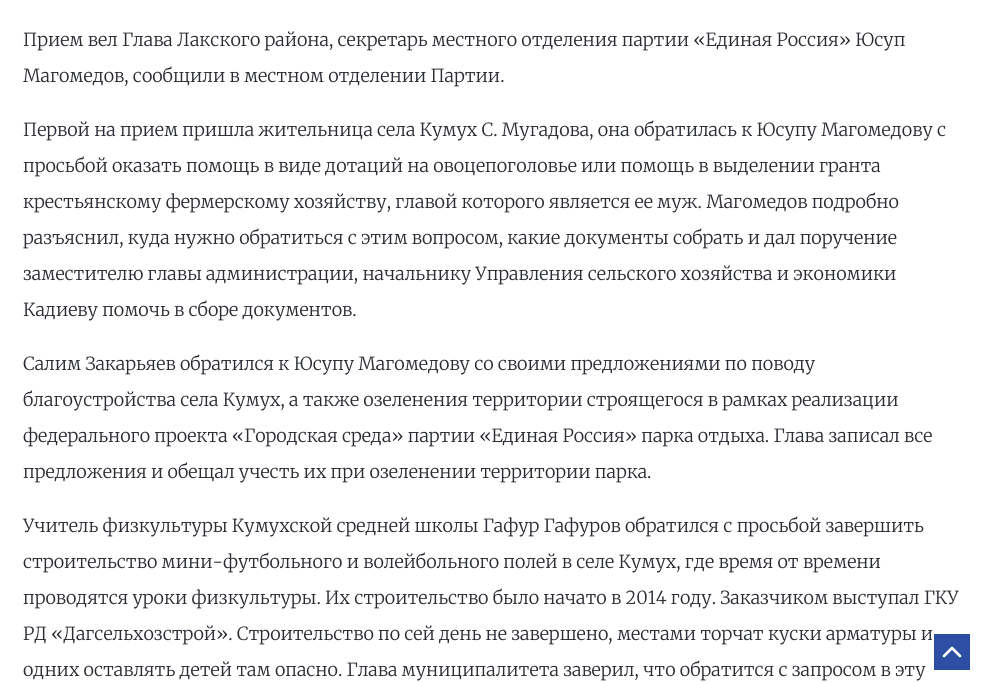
import math
import cairo

surface = cairo.ImageSurface(cairo.FORMAT_RGB24, 982, 682)
ctx = cairo.Context(surface)
options = cairo.FontOptions()
options.set_hint_metrics(cairo.HINT_METRICS_OFF)
options.set_hint_style(cairo.HINT_STYLE_NONE)
ctx.set_font_options(options)
ctx.set_miter_limit(4)


def set_color(code):
    ctx.set_source_rgb(*(v / 255 for v in bytes.fromhex(code[-6:])))


def draw_text(x, y, s, family, size, color, bold=False, italic=False):
    ctx.select_font_face(family, cairo.FONT_SLANT_ITALIC if italic else cairo.FONT_SLANT_NORMAL, cairo.FONT_WEIGHT_BOLD if bold else cairo.FONT_WEIGHT_NORMAL)
    ctx.set_font_size(size)
    set_color(color)
    ctx.move_to(x, y)
    ctx.show_text(s)


def draw_image(path, x, y, w, h):
    ctx.save()
    ctx.set_source_surface(cairo.ImageSurface.create_from_png(path), x, y)
    ctx.rectangle(x, y, w, h)
    ctx.fill()
    ctx.restore()


set_color("#ffffff")
ctx.paint()
draw_text(23, 46, "Прием вел Глава Лакского района, секретарь местного отделения партии «Единая Россия» Юсуп", "Merriweather Light", 18, "#2a2c34")
draw_text(23, 82, "Магомедов, сообщили в местном отделении Партии.", "Merriweather Light", 18, "#2a2c34")
draw_text(23, 136, "Первой на прием пришла жительница села Кумух С. Мугадова, она обратилась к Юсупу Магомедову с", "Merriweather Light", 18, "#2a2c34")
draw_text(23, 172, "просьбой оказать помощь в виде дотаций на овоцепоголовье или помощь в выделении гранта", "Merriweather Light", 18, "#2a2c34")
draw_text(23, 208, "крестьянскому фермерскому хозяйству, главой которого является ее муж. Магомедов подробно", "Merriweather Light", 18, "#2a2c34")
draw_text(23, 244, "разъяснил, куда нужно обратиться с этим вопросом, какие документы собрать и дал поручение", "Merriweather Light", 18, "#2a2c34")
draw_text(23, 280, "заместителю главы администрации, начальнику Управления сельского хозяйства и экономики", "Merriweather Light", 18, "#2a2c34")
draw_text(23, 316, "Кадиеву помочь в сборе документов.", "Merriweather Light", 18, "#2a2c34")
draw_text(23, 370, "Салим Закарьяев обратился к Юсупу Магомедову со своими предложениями по поводу", "Merriweather Light", 18, "#2a2c34")
draw_text(23, 406, "благоустройства села Кумух, а также озеленения территории строящегося в рамках реализации", "Merriweather Light", 18, "#2a2c34")
draw_text(23, 442, "федерального проекта «Городская среда» партии «Единая Россия» парка отдыха. Глава записал все", "Merriweather Light", 18, "#2a2c34")
draw_text(23, 478, "предложения и обещал учесть их при озеленении территории парка.", "Merriweather Light", 18, "#2a2c34")
draw_text(23, 532, "Учитель физкультуры Кумухской средней школы Гафур Гафуров обратился с просьбой завершить", "Merriweather Light", 18, "#2a2c34")
draw_text(23, 568, "строительство мини-футбольного и волейбольного полей в селе Кумух, где время от времени", "Merriweather Light", 18, "#2a2c34")
draw_text(23, 604, "проводятся уроки физкультуры. Их строительство было начато в 2014 году. Заказчиком выступал ГКУ", "Merriweather Light", 18, "#2a2c34")
draw_text(23, 640, "РД «Дагсельхозстрой». Строительство по сей день не завершено, местами торчат куски арматуры и", "Merriweather Light", 18, "#2a2c34")
draw_text(23, 676, "одних оставлять детей там опасно. Глава муниципалитета заверил, что обратится с запросом в эту", "Merriweather Light", 18, "#2a2c34")
set_color("#2e4ea4")
ctx.rectangle(933, 633, 38, 38)
ctx.fill_preserve()
set_color("#ffffff")
ctx.stroke()
draw_image("assets/img1.png", 942, 646, 20, 12)
surface.write_to_png("output.png")
